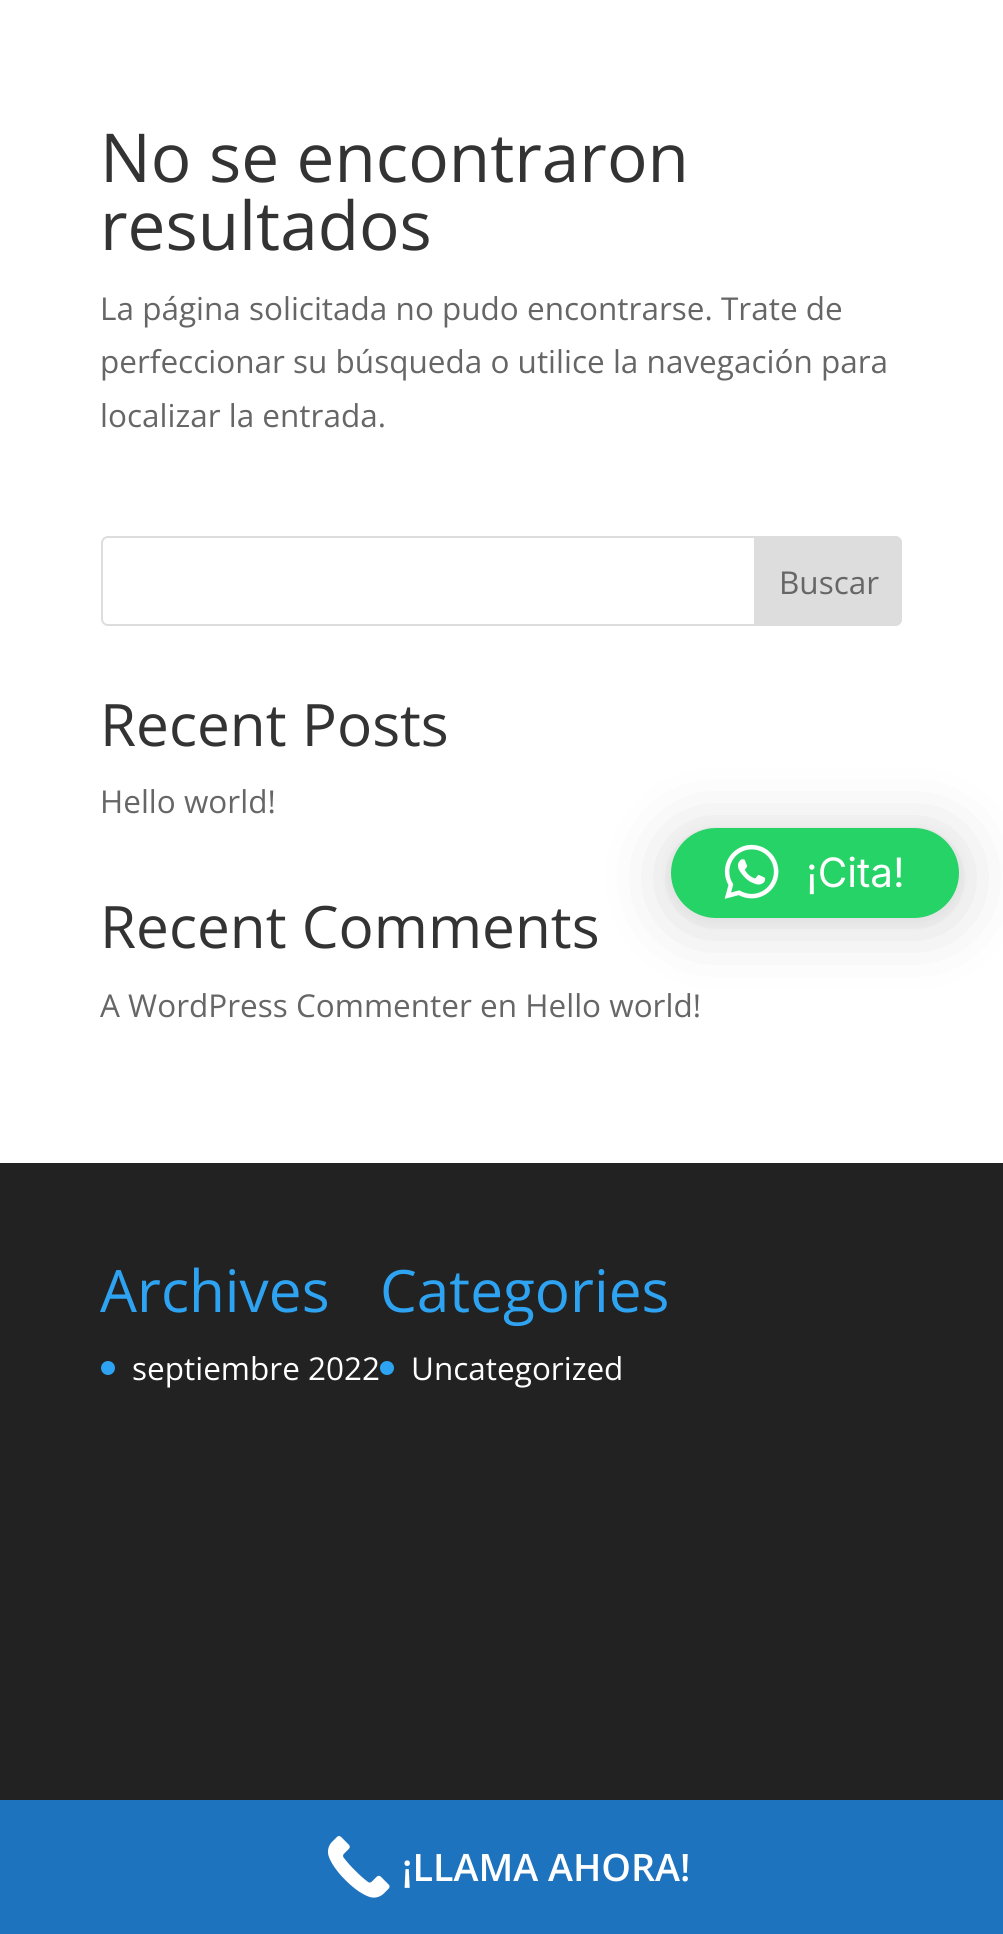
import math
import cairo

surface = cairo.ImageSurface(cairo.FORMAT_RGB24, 1003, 1934)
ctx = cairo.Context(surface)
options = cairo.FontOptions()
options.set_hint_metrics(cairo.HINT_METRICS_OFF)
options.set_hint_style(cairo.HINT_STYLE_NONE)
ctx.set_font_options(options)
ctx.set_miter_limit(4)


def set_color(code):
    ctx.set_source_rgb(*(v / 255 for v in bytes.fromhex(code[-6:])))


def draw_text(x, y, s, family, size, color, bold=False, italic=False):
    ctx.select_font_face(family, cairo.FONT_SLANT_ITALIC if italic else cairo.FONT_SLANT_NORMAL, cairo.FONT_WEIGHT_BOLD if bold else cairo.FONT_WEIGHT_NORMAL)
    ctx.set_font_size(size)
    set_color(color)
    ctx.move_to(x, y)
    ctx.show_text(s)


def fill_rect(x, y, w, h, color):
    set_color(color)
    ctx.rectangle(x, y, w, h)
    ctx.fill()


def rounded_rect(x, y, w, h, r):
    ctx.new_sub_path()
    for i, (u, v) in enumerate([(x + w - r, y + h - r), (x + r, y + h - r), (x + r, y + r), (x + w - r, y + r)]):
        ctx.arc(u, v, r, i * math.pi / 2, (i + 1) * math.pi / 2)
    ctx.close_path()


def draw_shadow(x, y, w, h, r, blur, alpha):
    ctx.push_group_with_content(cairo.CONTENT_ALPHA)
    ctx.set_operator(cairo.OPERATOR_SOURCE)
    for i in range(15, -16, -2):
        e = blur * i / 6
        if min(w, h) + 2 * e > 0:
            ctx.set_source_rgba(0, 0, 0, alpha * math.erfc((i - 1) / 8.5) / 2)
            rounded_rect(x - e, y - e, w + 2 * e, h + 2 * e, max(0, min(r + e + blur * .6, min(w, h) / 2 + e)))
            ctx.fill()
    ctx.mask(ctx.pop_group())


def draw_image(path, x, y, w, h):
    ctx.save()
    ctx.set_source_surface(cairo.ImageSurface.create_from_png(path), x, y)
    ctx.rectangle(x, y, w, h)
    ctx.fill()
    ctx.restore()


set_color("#ffffff")
ctx.paint()
draw_text(100, 182, "No se encontraron", "Open Sans", 67.5, "#333333")
draw_text(100, 250, "resultados", "Open Sans", 67.5, "#333333")
draw_text(100, 320, "La página solicitada no pudo encontrarse. Trate de", "Open Sans", 31.5, "#666666")
draw_text(100, 373, "perfeccionar su búsqueda o utilice la navegación para", "Open Sans", 31.5, "#666666")
draw_text(100, 427, "localizar la entrada.", "Open Sans", 31.5, "#666666")
rounded_rect(102, 537, 799, 88, 6)
set_color("#dddddd")
ctx.stroke()
ctx.new_path()
ctx.move_to(755, 537)
ctx.line_to(895, 537)
ctx.curve_to(898.5, 537, 901, 539.5, 901, 543)
ctx.line_to(901, 619)
ctx.curve_to(901, 622.5, 898.5, 625, 895, 625)
ctx.line_to(755, 625)
ctx.close_path()
ctx.fill_preserve()
ctx.stroke()
draw_text(779, 594, "Buscar", "Open Sans", 31.5, "#666666")
draw_text(100, 746, "Recent Posts", "Open Sans", 58.5, "#333333")
draw_text(100, 813, "Hello world!", "Open Sans", 31.5, "#666666")
draw_text(100, 948, "Recent Comments", "Open Sans", 58.5, "#333333")
draw_text(100, 1017, "A WordPress Commenter en Hello world!", "Open Sans", 31.5, "#666666")
fill_rect(0, 1163, 1003, 637, "#222222")
draw_text(100, 1312, "Archives", "Open Sans", 58.5, "#2ea3f2")
ctx.new_path()
ctx.arc(108, 1368, 7, 0, 2 * math.pi)
ctx.fill()
draw_text(132, 1380, "septiembre 2022", "Open Sans", 31.5, "#ffffff")
draw_text(380, 1312, "Categories", "Open Sans", 58.5, "#2ea3f2")
ctx.new_path()
ctx.arc(387, 1368, 7, 0, 2 * math.pi)
ctx.fill()
draw_text(411, 1380, "Uncategorized", "Open Sans", 31.5, "#ffffff")
set_color("#000000")
draw_shadow(671, 833, 288, 90, 45, 36, 0.16)
draw_shadow(671, 830, 288, 90, 45, 7, 0.06)
set_color("#25d366")
rounded_rect(671, 828, 288, 90, 45)
ctx.fill()
draw_image("assets/img1.png", 724, 844, 55, 55)
draw_text(806, 887, "¡Cita!", "Inter", 40.5, "#ffffff")
fill_rect(0, 1800, 1003, 134, "#1e73be")
draw_image("assets/img2.png", 328, 1836, 62, 62)
draw_text(402, 1881, "¡LLAMA AHORA!", "Open Sans SemiBold", 37.75, "#ffffff")
surface.write_to_png("output.png")
